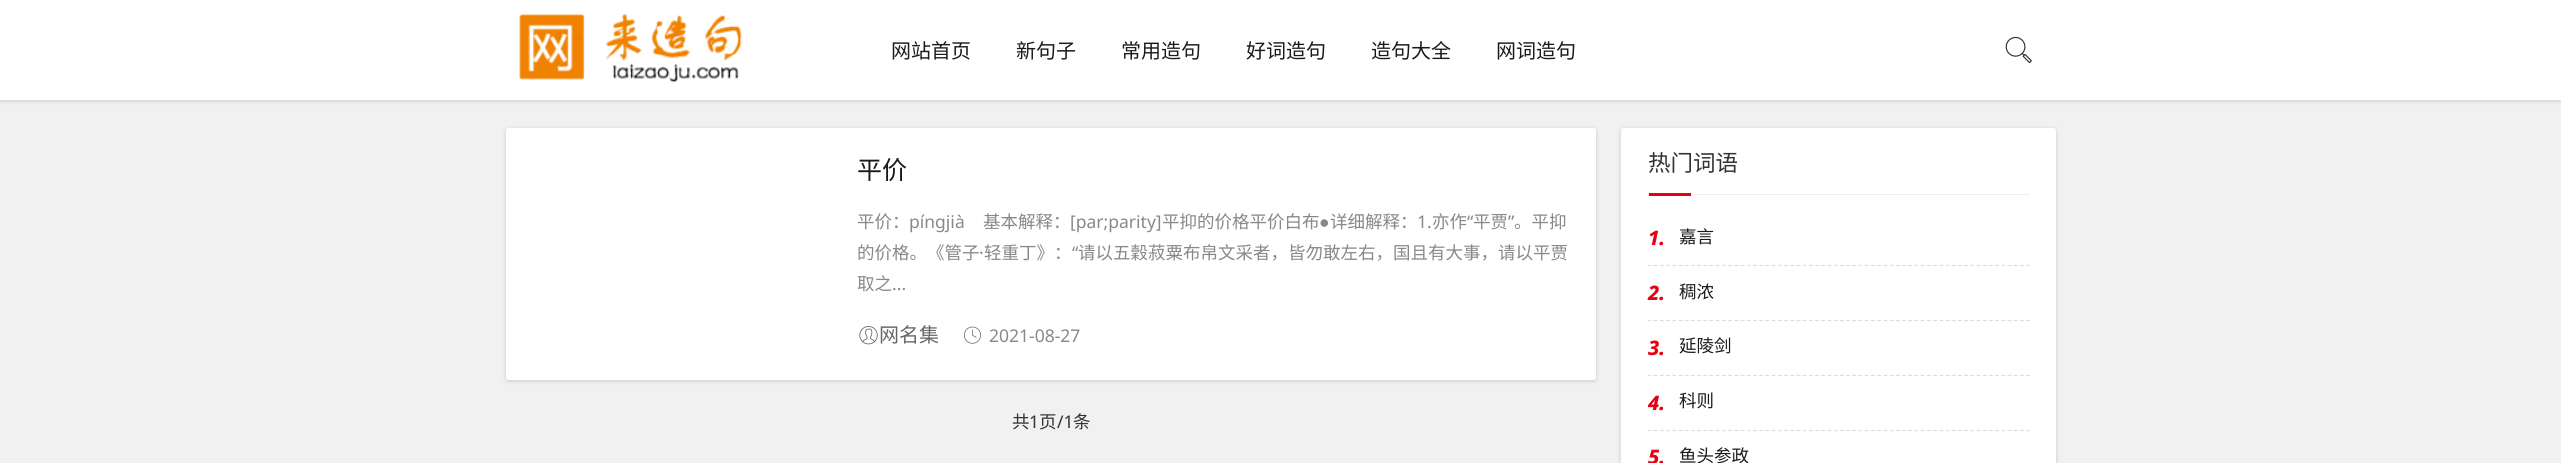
import math
import cairo

surface = cairo.ImageSurface(cairo.FORMAT_RGB24, 2561, 463)
ctx = cairo.Context(surface)
options = cairo.FontOptions()
options.set_hint_metrics(cairo.HINT_METRICS_OFF)
options.set_hint_style(cairo.HINT_STYLE_NONE)
ctx.set_font_options(options)
ctx.set_miter_limit(4)


def set_color(code):
    ctx.set_source_rgb(*(v / 255 for v in bytes.fromhex(code[-6:])))


def draw_text(x, y, s, family, size, color, bold=False, italic=False):
    ctx.select_font_face(family, cairo.FONT_SLANT_ITALIC if italic else cairo.FONT_SLANT_NORMAL, cairo.FONT_WEIGHT_BOLD if bold else cairo.FONT_WEIGHT_NORMAL)
    ctx.set_font_size(size)
    set_color(color)
    ctx.move_to(x, y)
    ctx.show_text(s)


def fill_rect(x, y, w, h, color):
    set_color(color)
    ctx.rectangle(x, y, w, h)
    ctx.fill()


def rounded_rect(x, y, w, h, r):
    ctx.new_sub_path()
    for i, (u, v) in enumerate([(x + w - r, y + h - r), (x + r, y + h - r), (x + r, y + r), (x + w - r, y + r)]):
        ctx.arc(u, v, r, i * math.pi / 2, (i + 1) * math.pi / 2)
    ctx.close_path()


def draw_shadow(x, y, w, h, r, blur, alpha):
    ctx.push_group_with_content(cairo.CONTENT_ALPHA)
    ctx.set_operator(cairo.OPERATOR_SOURCE)
    for i in range(15, -16, -2):
        e = blur * i / 6
        if min(w, h) + 2 * e > 0:
            ctx.set_source_rgba(0, 0, 0, alpha * math.erfc((i - 1) / 8.5) / 2)
            rounded_rect(x - e, y - e, w + 2 * e, h + 2 * e, max(0, min(r + e + blur * .6, min(w, h) / 2 + e)))
            ctx.fill()
    ctx.mask(ctx.pop_group())


def draw_image(path, x, y, w, h):
    ctx.save()
    ctx.set_source_surface(cairo.ImageSurface.create_from_png(path), x, y)
    ctx.rectangle(x, y, w, h)
    ctx.fill()
    ctx.restore()


set_color("#f1f1f1")
ctx.paint()
set_color("#1a1a1a")
draw_shadow(0, 1, 2561, 100, 0, 2, 0.2)
fill_rect(0, 0, 2561, 100, "#ffffff")
draw_image("assets/img1.png", 519, 14, 224, 69)
draw_text(891, 58, "网站首页", "Noto Sans CJK SC", 20, "#1a1a1a")
draw_text(1016, 58, "新句子", "Noto Sans CJK SC", 20, "#1a1a1a")
draw_text(1121, 58, "常用造句", "Noto Sans CJK SC", 20, "#1a1a1a")
draw_text(1246, 58, "好词造句", "Noto Sans CJK SC", 20, "#1a1a1a")
draw_text(1371, 58, "造句大全", "Noto Sans CJK SC", 20, "#1a1a1a")
draw_text(1496, 58, "网词造句", "Noto Sans CJK SC", 20, "#1a1a1a")
draw_image("assets/img2.png", 2005, 36, 27, 28)
set_color("#1a1a1a")
draw_shadow(506, 129, 1090, 252, 2.5, 2, 0.2)
set_color("#ffffff")
rounded_rect(506, 128, 1090, 252, 2.5)
ctx.fill()
draw_text(857, 179, "平价", "Noto Sans CJK SC", 25, "#1a1a1a")
draw_text(857, 228, "平价：", "Noto Sans CJK SC", 17.5, "#888888")
draw_text(909, 228, "píngjià", "Noto Sans", 17.5, "#888888")
draw_text(983, 228, "基本解释：", "Noto Sans CJK SC", 17.5, "#888888")
draw_text(1070, 228, "[par;parity]", "Noto Sans", 17.5, "#888888")
draw_text(1162, 228, "平抑的价格平价白布", "Noto Sans CJK SC", 17.5, "#888888")
draw_text(1330, 228, "详细解释：", "Noto Sans CJK SC", 17.5, "#888888")
draw_text(1417, 228, "1.", "Noto Sans", 17.5, "#888888")
draw_text(1432, 228, "亦作", "Noto Sans CJK SC", 17.5, "#888888")
draw_text(1467, 228, "“", "Noto Sans", 17.5, "#888888")
draw_text(1473, 228, "平贾", "Noto Sans CJK SC", 17.5, "#888888")
draw_text(1508, 228, "”", "Noto Sans", 17.5, "#888888")
draw_text(1514, 228, "。平抑", "Noto Sans CJK SC", 17.5, "#888888")
draw_text(1319, 228, "●", "Liberation Serif", 17.5, "#888888")
draw_text(857, 259, "的价格。《管子", "Noto Sans CJK SC", 17.5, "#888888")
draw_text(984, 259, "轻重丁》：", "Noto Sans CJK SC", 17.5, "#888888")
draw_text(1072, 259, "“", "Noto Sans", 17.5, "#888888")
draw_text(1078, 259, "请以五穀菽粟布帛文采者，皆勿敢左右，国且有大事，请以平贾", "Noto Sans CJK SC", 17.5, "#888888")
draw_text(979, 259, "·", "Noto Sans", 17.5, "#888888")
draw_text(857, 290, "取之", "Noto Sans CJK SC", 17.5, "#888888")
draw_text(892, 290, "...", "Noto Sans", 17.5, "#888888")
draw_image("assets/img3.png", 859, 326, 19, 19)
draw_text(879, 342, "网名集", "Noto Sans CJK SC", 20, "#666666")
draw_image("assets/img4.png", 963, 326, 18, 18)
draw_text(989, 342, "2021-08-27", "Noto Sans", 17.5, "#888888")
draw_text(1012, 428, "共", "Noto Sans CJK SC", 17.5, "#333333")
draw_text(1029, 428, "1", "Noto Sans", 17.5, "#333333")
draw_text(1039, 428, "页", "Noto Sans CJK SC", 17.5, "#333333")
draw_text(1057, 428, "/1", "Noto Sans", 17.5, "#333333")
draw_text(1073, 428, "条", "Noto Sans CJK SC", 17.5, "#333333")
set_color("#1a1a1a")
draw_shadow(1621, 129, 435, 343, 2.5, 2, 0.2)
set_color("#ffffff")
rounded_rect(1621, 128, 435, 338, 2.5)
ctx.fill()
fill_rect(1648, 194, 382, 1, "#eeeeee")
draw_text(1648, 171, "热门词语", "Noto Sans CJK SC", 22.5, "#333333")
fill_rect(1649, 193, 42, 3, "#e60012")
ctx.new_path()
ctx.move_to(1647.5, 265.5)
ctx.line_to(2030, 265.5)
set_color("#dddddd")
ctx.set_line_width(1.2)
ctx.set_dash([3.75, 2.46])
ctx.stroke()
draw_text(1648, 245, "1.", "Noto Sans ExtraBold", 20, "#e60012", italic=True)
draw_text(1679, 243, "嘉言", "Noto Sans CJK SC", 17.5, "#1a1a1a")
ctx.new_path()
ctx.move_to(1647.5, 320.5)
ctx.line_to(2030, 320.5)
set_color("#dddddd")
ctx.stroke()
draw_text(1648, 300, "2.", "Noto Sans ExtraBold", 20, "#e60012", italic=True)
draw_text(1679, 298, "稠浓", "Noto Sans CJK SC", 17.5, "#1a1a1a")
ctx.new_path()
ctx.move_to(1647.5, 375.5)
ctx.line_to(2030, 375.5)
set_color("#dddddd")
ctx.stroke()
draw_text(1648, 355, "3.", "Noto Sans ExtraBold", 20, "#e60012", italic=True)
draw_text(1679, 352, "延陵剑", "Noto Sans CJK SC", 17.5, "#1a1a1a")
ctx.new_path()
ctx.move_to(1647.5, 430.5)
ctx.line_to(2030, 430.5)
set_color("#dddddd")
ctx.stroke()
draw_text(1648, 410, "4.", "Noto Sans ExtraBold", 20, "#e60012", italic=True)
draw_text(1679, 407, "科则", "Noto Sans CJK SC", 17.5, "#1a1a1a")
draw_text(1648, 464, "5.", "Noto Sans ExtraBold", 20, "#e60012", italic=True)
draw_text(1679, 462, "鱼头参政", "Noto Sans CJK SC", 17.5, "#1a1a1a")
surface.write_to_png("output.png")
